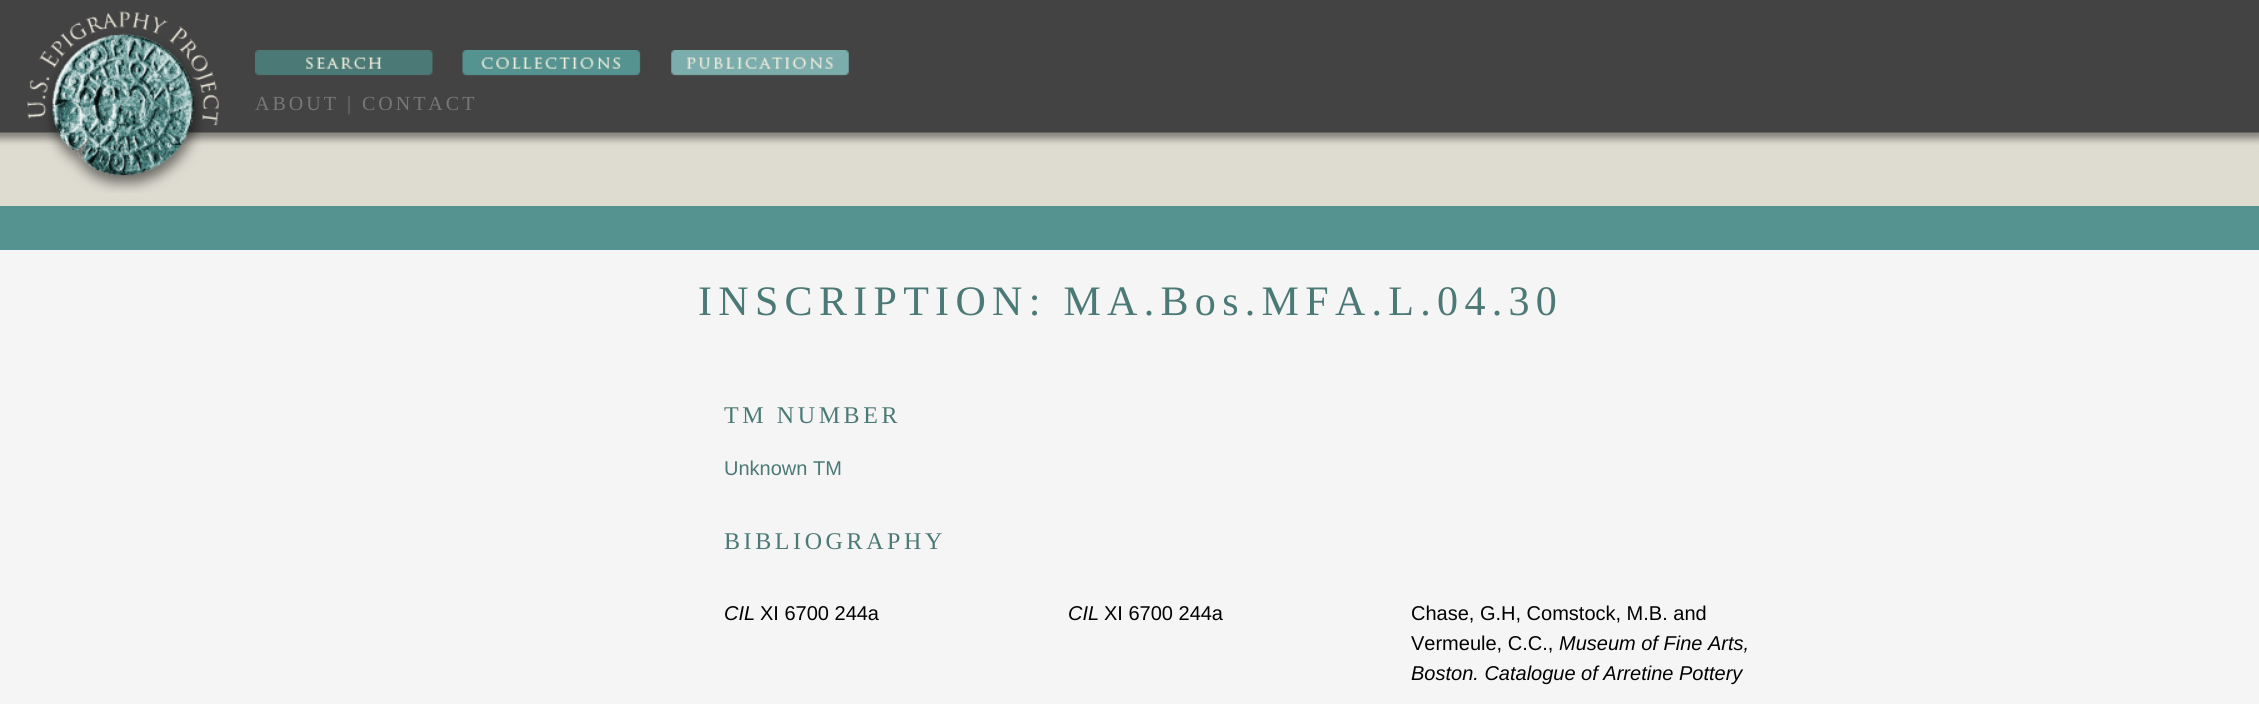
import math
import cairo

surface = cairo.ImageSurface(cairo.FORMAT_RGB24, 2259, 704)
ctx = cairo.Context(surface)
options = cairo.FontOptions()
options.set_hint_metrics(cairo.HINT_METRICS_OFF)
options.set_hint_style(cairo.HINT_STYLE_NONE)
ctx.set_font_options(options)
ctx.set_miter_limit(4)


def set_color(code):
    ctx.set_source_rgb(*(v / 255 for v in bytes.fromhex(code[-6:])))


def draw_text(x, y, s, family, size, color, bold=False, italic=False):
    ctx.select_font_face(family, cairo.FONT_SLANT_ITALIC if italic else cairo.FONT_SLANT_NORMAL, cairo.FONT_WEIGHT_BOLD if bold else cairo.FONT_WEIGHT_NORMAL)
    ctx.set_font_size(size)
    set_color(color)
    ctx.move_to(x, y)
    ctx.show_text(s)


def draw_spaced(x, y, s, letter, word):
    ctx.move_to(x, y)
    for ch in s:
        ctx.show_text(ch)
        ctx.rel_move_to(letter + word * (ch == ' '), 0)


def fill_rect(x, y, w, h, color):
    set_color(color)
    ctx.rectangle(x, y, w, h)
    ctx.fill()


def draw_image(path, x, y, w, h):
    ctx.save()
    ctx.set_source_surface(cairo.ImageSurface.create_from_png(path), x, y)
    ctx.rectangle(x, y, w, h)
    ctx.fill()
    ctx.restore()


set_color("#f5f5f5")
ctx.paint()
fill_rect(0, 132, 2259, 74, "#dedcd1")
draw_image("assets/img1.png", 0, 0, 2259, 145)
draw_image("assets/img2.png", 27, 11, 192, 182)
draw_image("assets/img3.png", 255, 50, 178, 26)
draw_image("assets/img4.png", 462, 50, 179, 26)
draw_image("assets/img5.png", 671, 50, 178, 26)
ctx.select_font_face("Liberation Serif")
ctx.set_font_size(20)
set_color("#777777")
draw_spaced(255, 110, "ABOUT | CONTACT", 3, 0)
fill_rect(0, 206, 2259, 44, "#549390")
ctx.set_font_size(42)
set_color("#4b7975")
draw_spaced(698, 315, "INSCRIPTION: MA.Bos.MFA.L.04.30", 6.3, 0)
ctx.set_font_size(24)
draw_spaced(724, 423, "TM NUMBER", 3.6, 0)
draw_text(724, 475, "Unknown TM", "Liberation Sans", 20, "#4b7975")
ctx.select_font_face("Liberation Serif")
ctx.set_font_size(24)
draw_spaced(724, 549, "BIBLIOGRAPHY", 3.6, 0)
draw_text(724, 620, "CIL", "Liberation Sans", 20, "#000000", italic=True)
draw_text(760, 620, "XI 6700 244a", "Liberation Sans", 20, "#000000")
draw_text(1068, 620, "CIL", "Liberation Sans", 20, "#000000", italic=True)
draw_text(1104, 620, "XI 6700 244a", "Liberation Sans", 20, "#000000")
draw_text(1411, 620, "Chase, G.H, Comstock, M.B. and", "Liberation Sans", 20, "#000000")
draw_text(1411, 650, "Vermeule, C.C.,", "Liberation Sans", 20, "#000000")
draw_text(1559, 650, "Museum of Fine Arts,", "Liberation Sans", 20, "#000000", italic=True)
draw_text(1411, 680, "Boston. Catalogue of Arretine Pottery", "Liberation Sans", 20, "#000000", italic=True)
surface.write_to_png("output.png")
